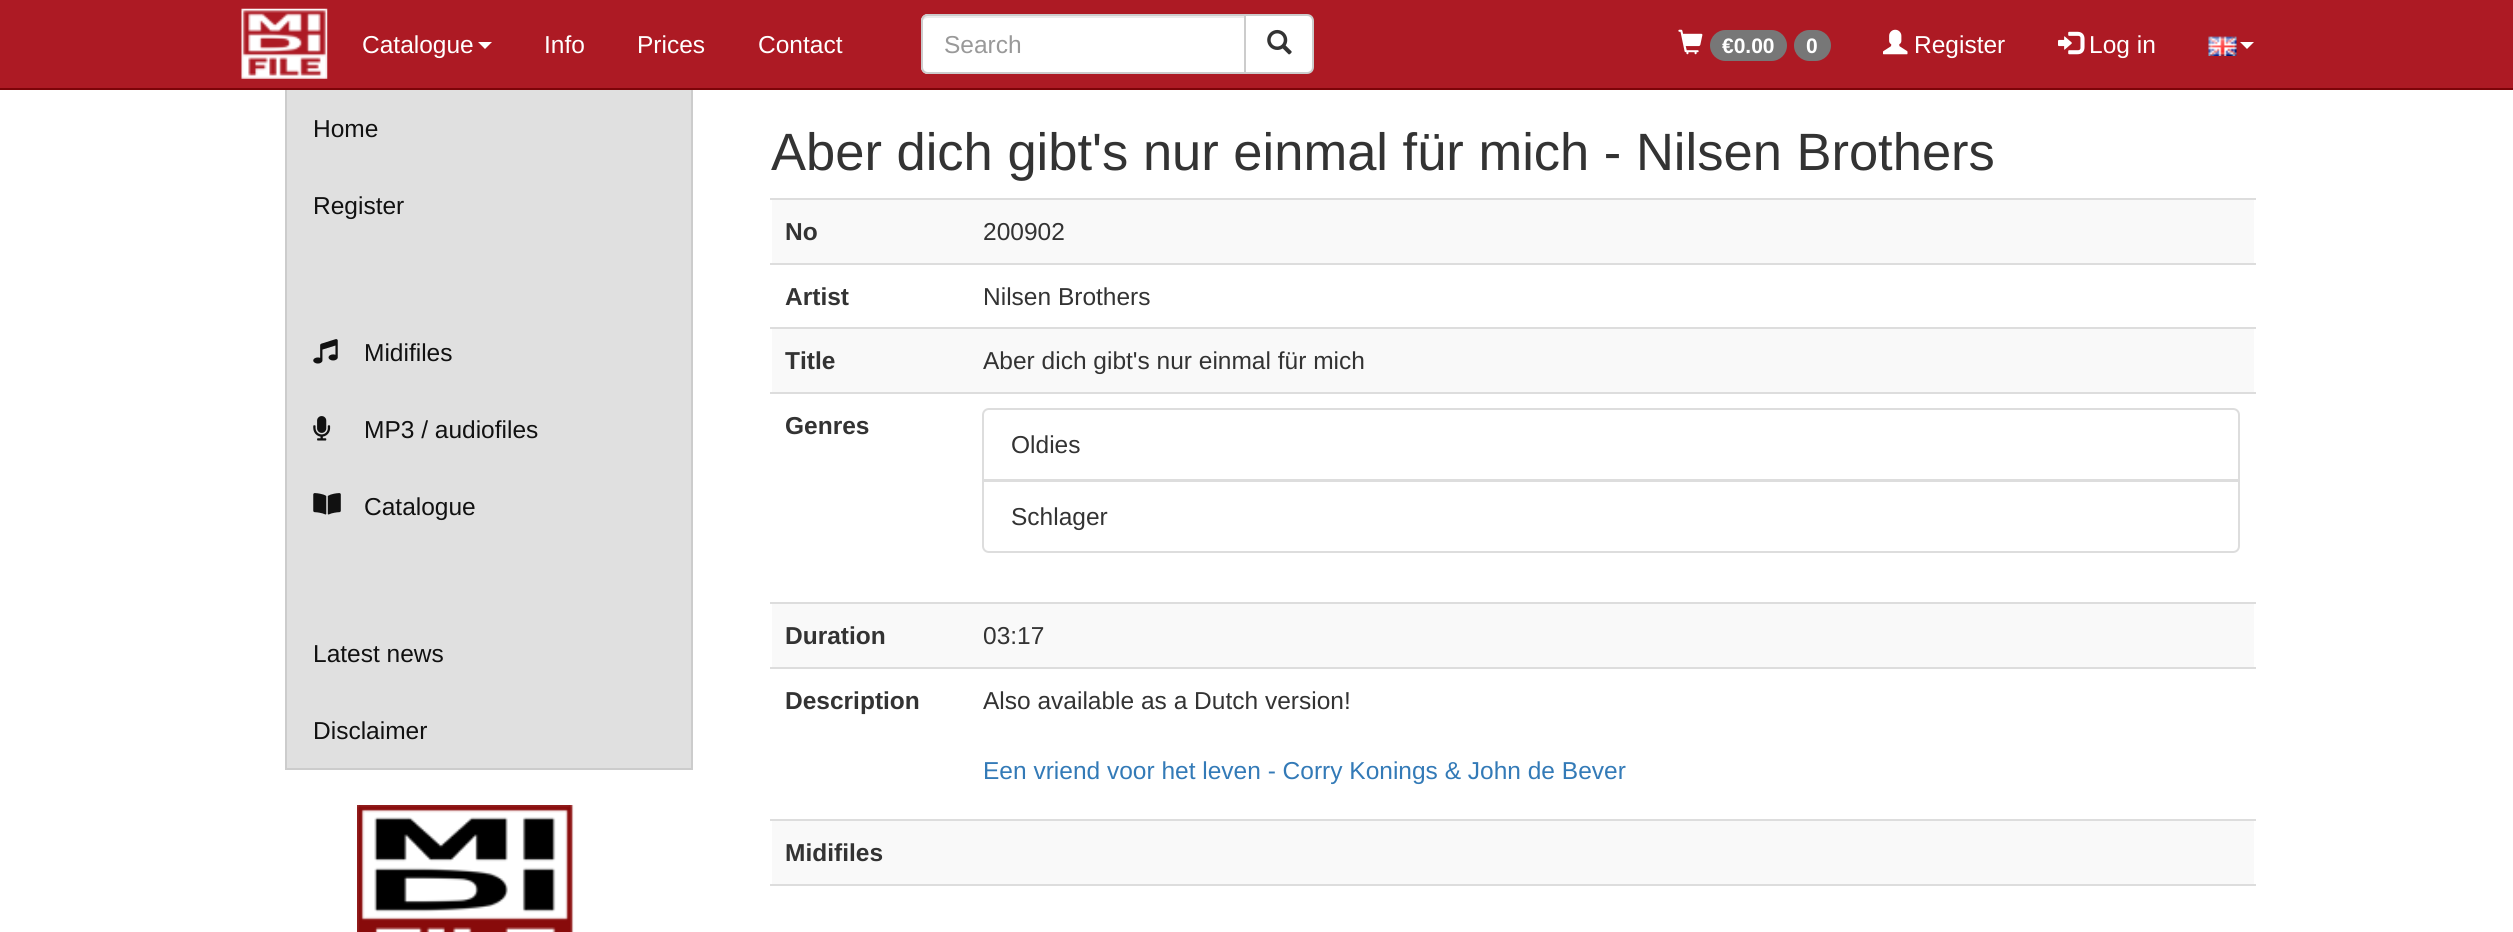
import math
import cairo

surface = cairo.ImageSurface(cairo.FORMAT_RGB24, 2513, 932)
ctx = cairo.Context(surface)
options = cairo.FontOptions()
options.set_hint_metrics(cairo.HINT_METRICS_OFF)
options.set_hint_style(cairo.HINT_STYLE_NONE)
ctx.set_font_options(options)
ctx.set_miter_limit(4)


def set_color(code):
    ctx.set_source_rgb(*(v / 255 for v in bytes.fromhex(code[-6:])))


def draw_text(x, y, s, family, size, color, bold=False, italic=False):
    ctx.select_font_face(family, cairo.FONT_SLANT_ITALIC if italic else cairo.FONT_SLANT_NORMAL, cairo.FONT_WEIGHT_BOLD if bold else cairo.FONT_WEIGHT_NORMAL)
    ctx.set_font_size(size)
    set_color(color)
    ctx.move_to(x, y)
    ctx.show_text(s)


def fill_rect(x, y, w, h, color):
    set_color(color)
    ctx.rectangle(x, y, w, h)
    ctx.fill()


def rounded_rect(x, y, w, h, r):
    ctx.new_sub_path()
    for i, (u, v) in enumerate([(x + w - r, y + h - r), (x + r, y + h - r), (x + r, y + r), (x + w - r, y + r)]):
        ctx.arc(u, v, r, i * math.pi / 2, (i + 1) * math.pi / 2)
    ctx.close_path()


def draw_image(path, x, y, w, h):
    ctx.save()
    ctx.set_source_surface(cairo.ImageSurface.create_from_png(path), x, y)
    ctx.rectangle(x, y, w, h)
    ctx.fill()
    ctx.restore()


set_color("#ffffff")
ctx.paint()
fill_rect(0, 0, 2513, 88, "#ad1a24")
set_color("#e0e0e0")
ctx.rectangle(286, 89, 406, 680)
ctx.fill_preserve()
set_color("#cccccc")
ctx.stroke()
fill_rect(0, 88, 2513, 2, "#7d0409")
draw_image("assets/img1.png", 241, 8, 87, 71)
draw_text(362, 53, "Catalogue", "Liberation Sans", 24.5, "#ffffff")
ctx.new_path()
ctx.move_to(478, 42)
ctx.line_to(492, 42)
ctx.line_to(485, 49)
ctx.close_path()
ctx.fill()
draw_text(544, 53, "Info", "Liberation Sans", 24.5, "#ffffff")
draw_text(637, 53, "Prices", "Liberation Sans", 24.5, "#ffffff")
draw_text(758, 53, "Contact", "Liberation Sans", 24.5, "#ffffff")
ctx.new_path()
ctx.move_to(928, 14)
ctx.line_to(1246, 14)
ctx.line_to(1246, 74)
ctx.line_to(928, 74)
ctx.curve_to(924, 74, 921, 71, 921, 67)
ctx.line_to(921, 21)
ctx.curve_to(921, 17, 924, 14, 928, 14)
ctx.close_path()
ctx.fill()
set_color("#ececec")
ctx.new_path()
ctx.move_to(928, 18)
ctx.line_to(1244, 18)
ctx.line_to(1244, 16)
ctx.line_to(927, 16)
ctx.curve_to(924, 16, 922, 18, 922, 21)
ctx.line_to(922, 23)
ctx.curve_to(922, 20, 925, 18, 928, 18)
ctx.close_path()
ctx.fill()
ctx.new_path()
ctx.move_to(928, 15)
ctx.line_to(1245, 15)
ctx.line_to(1245, 73)
ctx.line_to(928, 73)
ctx.curve_to(924.5, 73, 922, 70.5, 922, 67)
ctx.line_to(922, 21)
ctx.curve_to(922, 17.5, 924.5, 15, 928, 15)
ctx.close_path()
set_color("#cccccc")
ctx.stroke()
draw_text(944, 53, "Search", "Liberation Sans", 24.5, "#999999")
set_color("#ffffff")
ctx.new_path()
ctx.move_to(1245, 15)
ctx.line_to(1307, 15)
ctx.curve_to(1310.5, 15, 1313, 17.5, 1313, 21)
ctx.line_to(1313, 67)
ctx.curve_to(1313, 70.5, 1310.5, 73, 1307, 73)
ctx.line_to(1245, 73)
ctx.close_path()
ctx.fill_preserve()
set_color("#cccccc")
ctx.stroke()
draw_image("assets/img2.png", 1267, 29, 25, 26)
draw_image("assets/img3.png", 1678, 29, 25, 26)
set_color("#777777")
rounded_rect(1710, 30, 77, 31, 15.5)
ctx.fill()
draw_text(1722, 53, "€0.00", "Liberation Sans", 21, "#ffffff", bold=True)
set_color("#777777")
rounded_rect(1794, 30, 37, 31, 15.5)
ctx.fill()
draw_text(1806, 53, "0", "Liberation Sans", 21, "#ffffff", bold=True)
draw_image("assets/img4.png", 1883, 29, 25, 26)
draw_text(1914, 53, "Register", "Liberation Sans", 24.5, "#ffffff")
draw_image("assets/img5.png", 2058, 31, 27, 24)
draw_text(2089, 53, "Log in", "Liberation Sans", 24.5, "#ffffff")
draw_image("assets/img6.png", 2208, 36, 29, 20)
ctx.new_path()
ctx.move_to(2240, 42)
ctx.line_to(2254, 42)
ctx.line_to(2247, 49)
ctx.close_path()
ctx.fill()
draw_text(313, 137, "Home", "Liberation Sans", 24.5, "#111111")
draw_text(313, 214, "Register", "Liberation Sans", 24.5, "#111111")
draw_image("assets/img7.png", 313, 339, 25, 25)
draw_text(364, 361, "Midifiles", "Liberation Sans", 24.5, "#111111")
draw_image("assets/img8.png", 313, 416, 18, 25)
draw_text(364, 438, "MP3 / audiofiles", "Liberation Sans", 24.5, "#111111")
draw_image("assets/img9.png", 313, 493, 28, 22)
draw_text(364, 515, "Catalogue", "Liberation Sans", 24.5, "#111111")
draw_text(313, 662, "Latest news", "Liberation Sans", 24.5, "#111111")
draw_text(313, 739, "Disclaimer", "Liberation Sans", 24.5, "#111111")
draw_image("assets/img10.png", 357, 805, 217, 127)
draw_text(771, 170, "Aber dich gibt's nur einmal für mich - Nilsen Brothers", "Liberation Sans", 52.5, "#333333")
fill_rect(772, 200, 1482, 63, "#f9f9f9")
draw_text(785, 240, "No", "Liberation Sans", 24.5, "#333333", bold=True)
fill_rect(770, 198, 1486, 2, "#dddddd")
draw_text(983, 240, "200902", "Liberation Sans", 24.5, "#333333")
draw_text(785, 305, "Artist", "Liberation Sans", 24.5, "#333333", bold=True)
fill_rect(770, 263, 1486, 2, "#dddddd")
draw_text(983, 305, "Nilsen Brothers", "Liberation Sans", 24.5, "#333333")
fill_rect(772, 329, 1482, 63, "#f9f9f9")
draw_text(785, 369, "Title", "Liberation Sans", 24.5, "#333333", bold=True)
fill_rect(770, 327, 1486, 2, "#dddddd")
draw_text(983, 369, "Aber dich gibt's nur einmal für mich", "Liberation Sans", 24.5, "#333333")
draw_text(785, 434, "Genres", "Liberation Sans", 24.5, "#333333", bold=True)
fill_rect(770, 392, 1486, 2, "#dddddd")
ctx.new_path()
ctx.move_to(989, 409)
ctx.line_to(2233, 409)
ctx.curve_to(2236.5, 409, 2239, 411.5, 2239, 415)
ctx.line_to(2239, 480)
ctx.line_to(983, 480)
ctx.line_to(983, 415)
ctx.curve_to(983, 411.5, 985.5, 409, 989, 409)
ctx.close_path()
ctx.stroke()
draw_text(1011, 453, "Oldies", "Liberation Sans", 24.5, "#333333")
set_color("#ffffff")
ctx.new_path()
ctx.move_to(983, 481)
ctx.line_to(2239, 481)
ctx.line_to(2239, 546)
ctx.curve_to(2239, 549.5, 2236.5, 552, 2233, 552)
ctx.line_to(989, 552)
ctx.curve_to(985.5, 552, 983, 549.5, 983, 546)
ctx.close_path()
ctx.fill_preserve()
set_color("#dddddd")
ctx.stroke()
draw_text(1011, 525, "Schlager", "Liberation Sans", 24.5, "#333333")
fill_rect(772, 604, 1482, 63, "#f9f9f9")
draw_text(785, 644, "Duration", "Liberation Sans", 24.5, "#333333", bold=True)
fill_rect(770, 602, 1486, 2, "#dddddd")
draw_text(983, 644, "03:17", "Liberation Sans", 24.5, "#333333")
draw_text(785, 709, "Description", "Liberation Sans", 24.5, "#333333", bold=True)
fill_rect(770, 667, 1486, 2, "#dddddd")
draw_text(983, 709, "Also available as a Dutch version!", "Liberation Sans", 24.5, "#333333")
draw_text(983, 779, "Een vriend voor het leven - Corry Konings & John de Bever", "Liberation Sans", 24.5, "#337ab7")
fill_rect(772, 821, 1482, 63, "#f9f9f9")
fill_rect(770, 819, 1486, 2, "#dddddd")
draw_text(785, 861, "Midifiles", "Liberation Sans", 24.5, "#333333", bold=True)
fill_rect(770, 884, 1486, 2, "#dddddd")
surface.write_to_png("output.png")
